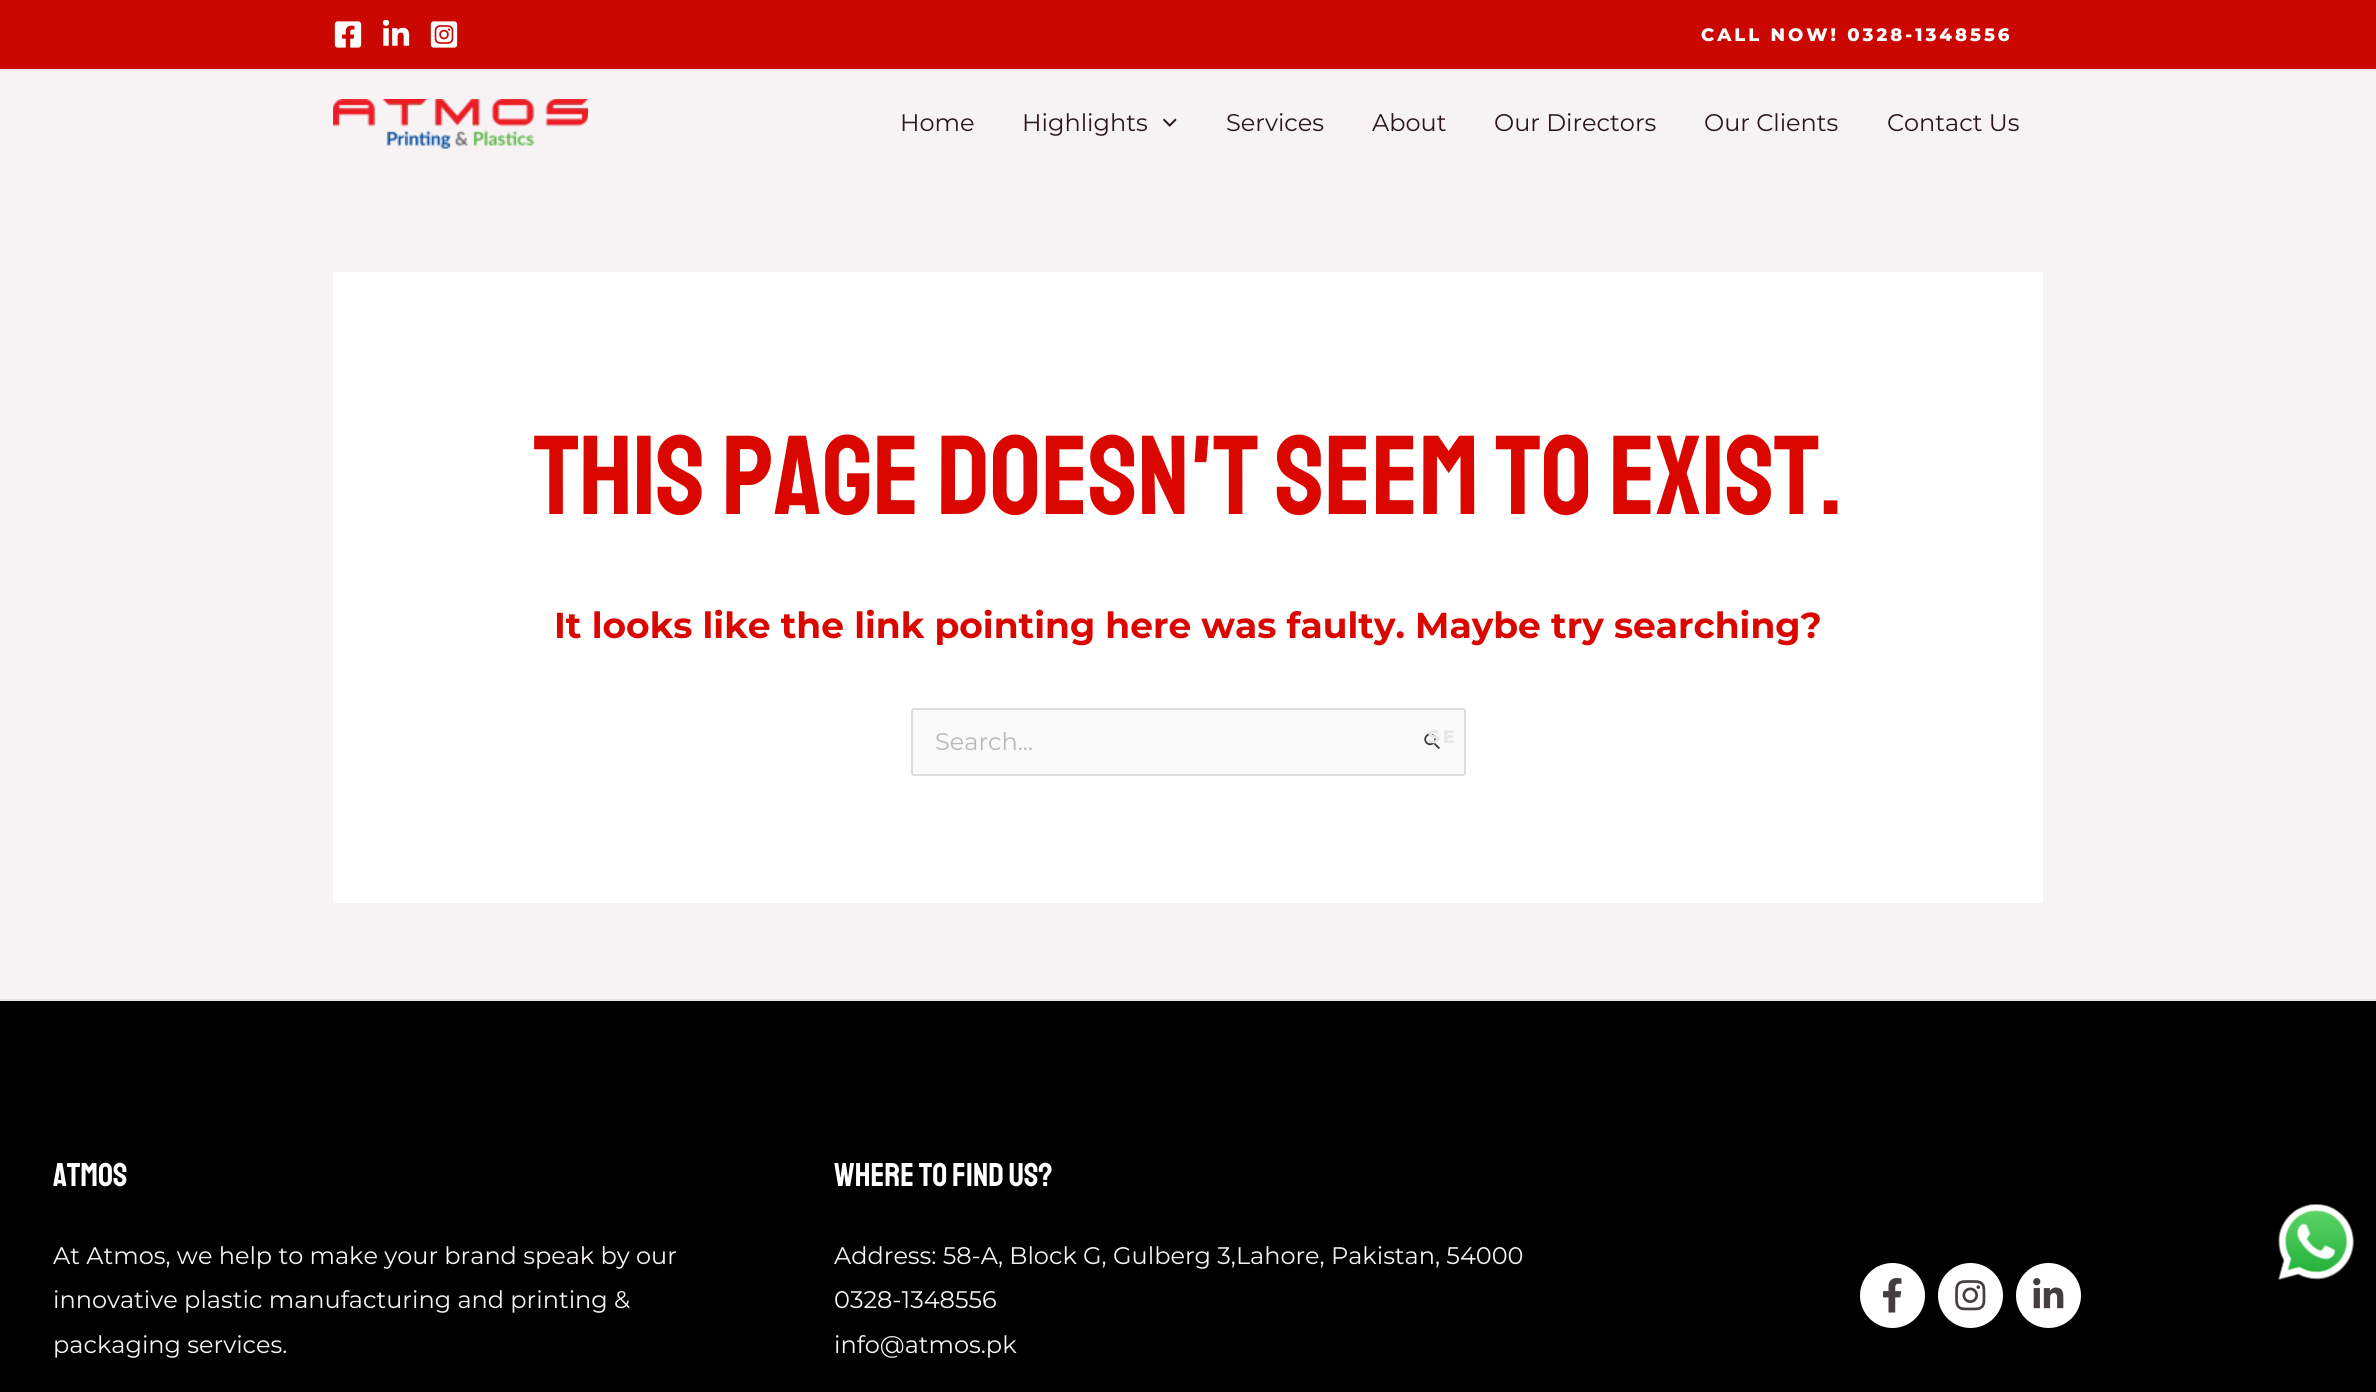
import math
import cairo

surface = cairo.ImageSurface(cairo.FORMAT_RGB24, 2376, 1392)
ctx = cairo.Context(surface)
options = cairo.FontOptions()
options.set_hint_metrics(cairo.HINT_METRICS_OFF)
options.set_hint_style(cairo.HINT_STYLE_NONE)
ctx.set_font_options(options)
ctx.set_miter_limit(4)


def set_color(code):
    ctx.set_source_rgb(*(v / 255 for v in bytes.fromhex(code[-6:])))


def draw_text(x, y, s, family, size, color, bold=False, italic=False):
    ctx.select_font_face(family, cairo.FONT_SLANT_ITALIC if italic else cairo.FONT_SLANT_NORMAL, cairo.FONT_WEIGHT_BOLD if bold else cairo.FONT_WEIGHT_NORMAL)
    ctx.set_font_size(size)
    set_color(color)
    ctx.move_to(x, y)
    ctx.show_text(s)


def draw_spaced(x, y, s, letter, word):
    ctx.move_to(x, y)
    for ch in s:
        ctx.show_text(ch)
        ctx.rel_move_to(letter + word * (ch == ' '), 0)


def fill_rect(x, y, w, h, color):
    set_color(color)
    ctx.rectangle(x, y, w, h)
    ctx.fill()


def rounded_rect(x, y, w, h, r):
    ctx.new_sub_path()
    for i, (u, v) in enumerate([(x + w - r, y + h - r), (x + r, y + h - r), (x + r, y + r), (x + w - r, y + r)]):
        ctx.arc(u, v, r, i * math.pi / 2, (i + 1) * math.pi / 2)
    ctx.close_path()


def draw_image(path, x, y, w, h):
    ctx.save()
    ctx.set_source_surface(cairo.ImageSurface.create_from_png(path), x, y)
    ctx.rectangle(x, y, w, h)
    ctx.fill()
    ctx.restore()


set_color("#f7f3f5")
ctx.paint()
fill_rect(0, 0, 2376, 69, "#ca0700")
fill_rect(0, 69, 2376, 2, "#eaeaea")
draw_image("assets/img1.png", 334, 21, 28, 27)
draw_image("assets/img2.png", 382, 20, 28, 26)
draw_image("assets/img3.png", 430, 21, 28, 27)
ctx.select_font_face("Montserrat ExtraBold")
ctx.set_font_size(18)
set_color("#ffffff")
draw_spaced(1701, 41, "CALL NOW! 0328-1348556", 3, 0)
draw_image("assets/img4.png", 333, 99, 255, 50)
draw_text(900, 131, "Home", "Montserrat", 24, "#2b161b")
draw_text(1022, 131, "Highlights", "Montserrat", 24, "#2b161b")
draw_image("assets/img5.png", 1163, 118, 14, 9)
draw_text(1226, 131, "Services", "Montserrat", 24, "#2b161b")
draw_text(1372, 131, "About", "Montserrat", 24, "#2b161b")
draw_text(1494, 131, "Our Directors", "Montserrat", 24, "#2b161b")
draw_text(1704, 131, "Our Clients", "Montserrat", 24, "#2b161b")
draw_text(1887, 131, "Contact Us", "Montserrat", 24, "#2b161b")
fill_rect(333, 272, 1710, 631, "#ffffff")
draw_text(534, 514, "This page doesn't seem to exist.", "Staatliches", 112.5, "#d90700")
draw_text(554, 638, "It looks like the link pointing here was faulty. Maybe try searching?", "Montserrat", 36, "#d90700", bold=True)
set_color("#fafafa")
rounded_rect(912, 709, 553, 66, 2)
ctx.fill_preserve()
set_color("#dddddd")
ctx.stroke()
draw_text(935, 750, "Search...", "Montserrat", 24, "#b8b8b8")
draw_image("assets/img6.png", 1424, 733, 16, 17)
ctx.select_font_face("Montserrat ExtraBold")
ctx.set_font_size(18)
set_color("#e7e7e7")
draw_spaced(1428, 743, "SE", 3, 0)
fill_rect(0, 1001, 2376, 391, "#000000")
fill_rect(0, 999, 2376, 2, "#e6e6e6")
draw_text(53, 1186, "ATMOS", "Staatliches", 33, "#ffffff")
draw_text(53, 1264, "At Atmos, we help to make your brand speak by our", "Montserrat", 24, "#f7f3f5")
draw_text(53, 1308, "innovative plastic manufacturing and printing &", "Montserrat", 24, "#f7f3f5")
draw_text(53, 1353, "packaging services.", "Montserrat", 24, "#f7f3f5")
draw_text(834, 1186, "WHERE TO FIND US?", "Staatliches", 33, "#ffffff")
draw_text(834, 1264, "Address: 58-A, Block G, Gulberg 3,Lahore, Pakistan, 54000", "Montserrat", 24, "#f7f3f5")
draw_text(834, 1308, "0328-1348556", "Montserrat", 24, "#f7f3f5")
draw_text(834, 1353, "info@atmos.pk", "Montserrat", 24, "#f7f3f5")
set_color("#ffffff")
ctx.new_path()
ctx.arc(1892.5, 1295.5, 32.5, 0, 2 * math.pi)
ctx.fill()
draw_image("assets/img7.png", 1883, 1278, 19, 35)
ctx.arc(1970.5, 1295.5, 32.5, 0, 2 * math.pi)
ctx.fill()
draw_image("assets/img8.png", 1955, 1280, 31, 31)
ctx.arc(2048.5, 1295.5, 32.5, 0, 2 * math.pi)
ctx.fill()
draw_image("assets/img9.png", 2033, 1278, 31, 31)
draw_image("assets/img10.png", 2278, 1204, 76, 76)
surface.write_to_png("output.png")
